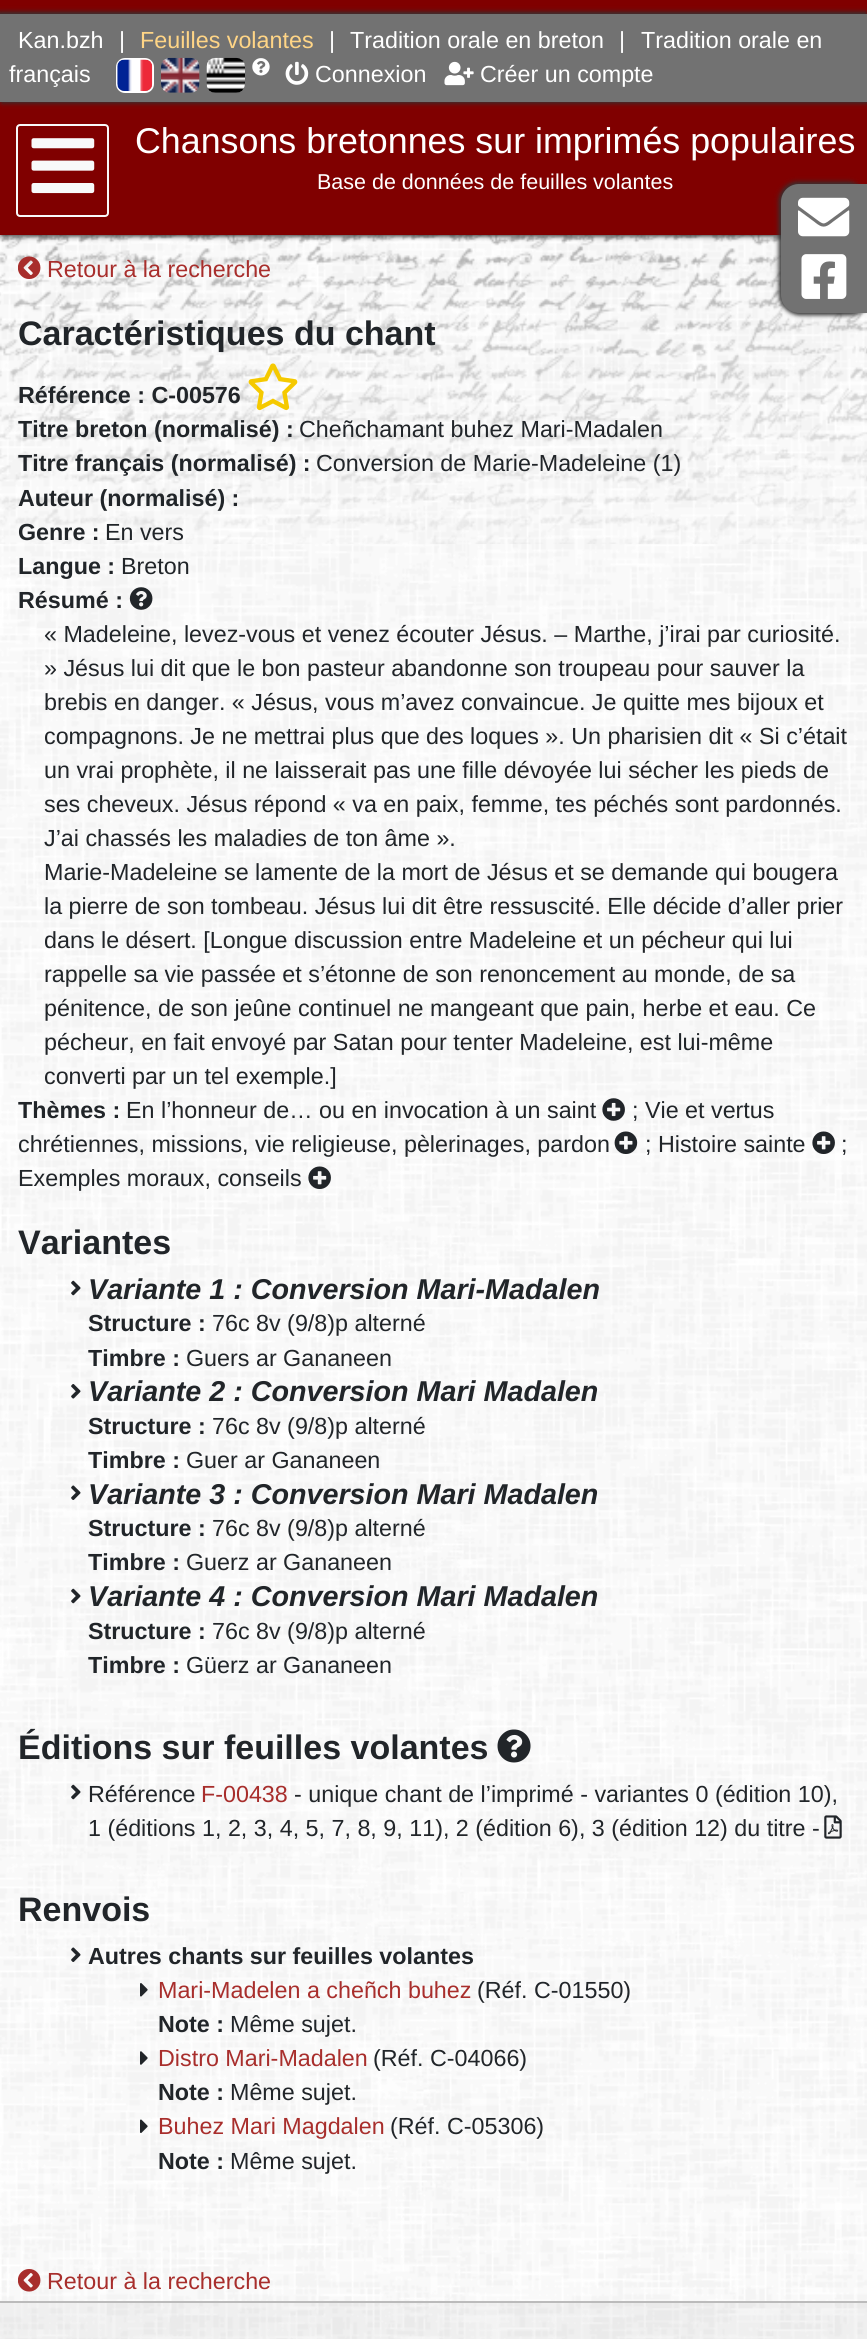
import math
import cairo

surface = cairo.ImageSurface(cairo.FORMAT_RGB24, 867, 2339)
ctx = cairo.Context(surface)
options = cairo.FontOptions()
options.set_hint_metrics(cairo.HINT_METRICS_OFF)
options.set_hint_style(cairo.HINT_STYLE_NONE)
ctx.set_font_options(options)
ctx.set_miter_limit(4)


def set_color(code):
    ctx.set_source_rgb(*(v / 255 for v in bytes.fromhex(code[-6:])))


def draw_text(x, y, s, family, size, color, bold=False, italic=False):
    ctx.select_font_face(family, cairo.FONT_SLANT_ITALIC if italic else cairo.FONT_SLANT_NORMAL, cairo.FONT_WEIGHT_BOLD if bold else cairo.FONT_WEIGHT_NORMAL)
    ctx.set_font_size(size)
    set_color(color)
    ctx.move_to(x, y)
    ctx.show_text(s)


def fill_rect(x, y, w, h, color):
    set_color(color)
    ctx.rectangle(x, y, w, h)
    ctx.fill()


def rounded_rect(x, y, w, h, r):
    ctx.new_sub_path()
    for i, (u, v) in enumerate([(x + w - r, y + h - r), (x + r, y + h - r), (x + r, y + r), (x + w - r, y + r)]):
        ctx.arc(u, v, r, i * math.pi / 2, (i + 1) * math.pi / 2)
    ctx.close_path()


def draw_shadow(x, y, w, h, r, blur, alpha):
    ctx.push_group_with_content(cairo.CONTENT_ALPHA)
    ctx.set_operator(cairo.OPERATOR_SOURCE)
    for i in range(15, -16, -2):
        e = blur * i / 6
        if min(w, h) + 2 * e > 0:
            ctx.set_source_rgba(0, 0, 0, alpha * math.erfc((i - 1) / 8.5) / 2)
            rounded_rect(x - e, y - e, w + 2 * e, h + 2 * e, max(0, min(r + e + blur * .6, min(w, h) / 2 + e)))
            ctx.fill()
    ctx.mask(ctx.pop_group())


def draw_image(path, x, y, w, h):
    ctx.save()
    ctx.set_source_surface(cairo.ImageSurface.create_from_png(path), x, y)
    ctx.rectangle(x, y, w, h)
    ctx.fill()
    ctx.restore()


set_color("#ffffff")
ctx.paint()
draw_image("assets/img1.png", 0, 235, 867, 2104)
draw_image("assets/img2.png", 0, 235, 867, 309)
fill_rect(0, 0, 867, 235, "#800000")
set_color("#333333")
draw_shadow(-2, 12, 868, 88, 0, 2.5, 1)
draw_shadow(2, 16, 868, 87, 0, 2.5, 1)
ctx.save()
ctx.set_fill_rule(cairo.FILL_RULE_EVEN_ODD)
ctx.new_path()
ctx.move_to(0, 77)
ctx.line_to(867, 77)
ctx.line_to(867, 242)
ctx.line_to(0, 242)
ctx.close_path()
ctx.move_to(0, 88)
ctx.line_to(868, 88)
ctx.line_to(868, 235)
ctx.line_to(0, 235)
ctx.close_path()
ctx.clip()
draw_shadow(-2, 86, 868, 147, 0, 2.5, 1)
ctx.restore()
ctx.save()
ctx.set_fill_rule(cairo.FILL_RULE_EVEN_ODD)
ctx.new_path()
ctx.move_to(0, 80)
ctx.line_to(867, 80)
ctx.line_to(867, 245)
ctx.line_to(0, 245)
ctx.close_path()
ctx.move_to(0, 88)
ctx.line_to(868, 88)
ctx.line_to(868, 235)
ctx.line_to(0, 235)
ctx.close_path()
ctx.clip()
draw_shadow(2, 89, 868, 147, 0, 2.5, 1)
ctx.restore()
fill_rect(0, 14, 867, 88, "#727272")
draw_text(18, 48, "Kan.bzh", "Liberation Sans", 23.3, "#ffffff")
draw_text(119, 48, "|", "Liberation Sans", 23.3, "#ffffff")
draw_text(140, 48, "Feuilles volantes", "Liberation Sans", 23.3, "#ffd586")
draw_text(329, 48, "|", "Liberation Sans", 23.3, "#ffffff")
draw_text(350, 48, "Tradition orale en breton", "Liberation Sans", 23.3, "#ffffff")
draw_text(619, 48, "|", "Liberation Sans", 23.3, "#ffffff")
draw_text(641, 48, "Tradition orale en", "Liberation Sans", 23.3, "#ffffff")
draw_text(9, 82, "français", "Liberation Sans", 23.3, "#ffffff")
rounded_rect(117, 59, 36, 33, 8)
ctx.stroke()
draw_image("assets/img3.png", 117, 59, 36, 32)
draw_image("assets/img4.png", 161, 57, 39, 36)
draw_image("assets/img5.png", 206, 57, 39, 36)
draw_image("assets/img6.png", 252, 58, 18, 18)
draw_image("assets/img7.png", 285, 61, 24, 24)
draw_text(315, 82, "Connexion", "Liberation Sans", 23.3, "#ffffff")
draw_image("assets/img8.png", 444, 61, 30, 25)
draw_text(480, 82, "Créer un compte", "Liberation Sans", 23.3, "#ffffff")
rounded_rect(17, 125, 91, 91, 3)
set_color("#f8f9fa")
ctx.stroke()
draw_image("assets/img9.png", 31, 138, 64, 56)
draw_text(135, 153, "Chansons bretonnes sur imprimés populaires", "Liberation Sans", 35.8, "#ffffff")
draw_text(317, 189, "Base de données de feuilles volantes", "Liberation Sans", 21.5, "#ffffff")
draw_image("assets/img10.png", 18, 256, 23, 23)
draw_text(47, 277, "Retour à la recherche", "Liberation Sans", 23.3, "#a82e2c")
draw_text(18, 345, "Caractéristiques du chant", "Liberation Sans", 34, "#212529", bold=True)
draw_text(18, 403, "Référence : C-00576", "Liberation Sans", 23.3, "#212529", bold=True)
draw_image("assets/img11.png", 248, 363, 50, 48)
ctx.save()
ctx.rectangle(18, 252, 833, 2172)
ctx.clip()
draw_text(18, 437, "Titre breton (normalisé) :", "Liberation Sans", 23.3, "#212529", bold=True)
ctx.restore()
draw_text(299, 437, "Cheñchamant buhez Mari-Madalen", "Liberation Sans", 23.3, "#212529")
ctx.save()
ctx.rectangle(18, 252, 833, 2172)
ctx.clip()
draw_text(18, 471, "Titre français (normalisé) :", "Liberation Sans", 23.3, "#212529", bold=True)
ctx.restore()
draw_text(316, 471, "Conversion de Marie-Madeleine (1)", "Liberation Sans", 23.3, "#212529")
draw_text(18, 506, "Auteur (normalisé) :", "Liberation Sans", 23.3, "#212529", bold=True)
draw_text(18, 540, "Genre :", "Liberation Sans", 23.3, "#212529", bold=True)
draw_text(105, 540, "En vers", "Liberation Sans", 23.3, "#212529")
draw_text(18, 574, "Langue :", "Liberation Sans", 23.3, "#212529", bold=True)
draw_text(121, 574, "Breton", "Liberation Sans", 23.3, "#212529")
draw_text(18, 608, "Résumé :", "Liberation Sans", 23.3, "#212529", bold=True)
draw_image("assets/img12.png", 129, 587, 24, 23)
draw_text(44, 642, "« Madeleine, levez-vous et venez écouter Jésus. – Marthe, j’irai par curiosité.", "Liberation Sans", 23.3, "#212529")
draw_text(44, 676, "» Jésus lui dit que le bon pasteur abandonne son troupeau pour sauver la", "Liberation Sans", 23.3, "#212529")
draw_text(44, 710, "brebis en danger. « Jésus, vous m’avez convaincue. Je quitte mes bijoux et", "Liberation Sans", 23.3, "#212529")
draw_text(44, 744, "compagnons. Je ne mettrai plus que des loques ». Un pharisien dit « Si c’était", "Liberation Sans", 23.3, "#212529")
draw_text(44, 778, "un vrai prophète, il ne laisserait pas une fille dévoyée lui sécher les pieds de", "Liberation Sans", 23.3, "#212529")
draw_text(44, 812, "ses cheveux. Jésus répond « va en paix, femme, tes péchés sont pardonnés.", "Liberation Sans", 23.3, "#212529")
draw_text(44, 846, "J’ai chassés les maladies de ton âme ».", "Liberation Sans", 23.3, "#212529")
draw_text(44, 880, "Marie-Madeleine se lamente de la mort de Jésus et se demande qui bougera", "Liberation Sans", 23.3, "#212529")
draw_text(44, 914, "la pierre de son tombeau. Jésus lui dit être ressuscité. Elle décide d’aller prier", "Liberation Sans", 23.3, "#212529")
draw_text(44, 948, "dans le désert. [Longue discussion entre Madeleine et un pécheur qui lui", "Liberation Sans", 23.3, "#212529")
draw_text(44, 982, "rappelle sa vie passée et s’étonne de son renoncement au monde, de sa", "Liberation Sans", 23.3, "#212529")
draw_text(44, 1016, "pénitence, de son jeûne continuel ne mangeant que pain, herbe et eau. Ce", "Liberation Sans", 23.3, "#212529")
draw_text(44, 1050, "pécheur, en fait envoyé par Satan pour tenter Madeleine, est lui-même", "Liberation Sans", 23.3, "#212529")
draw_text(44, 1084, "converti par un tel exemple.]", "Liberation Sans", 23.3, "#212529")
ctx.save()
ctx.rectangle(18, 252, 833, 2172)
ctx.clip()
draw_text(18, 1118, "Thèmes :", "Liberation Sans", 23.3, "#212529", bold=True)
ctx.restore()
draw_text(126, 1118, "En l’honneur de… ou en invocation à un saint", "Liberation Sans", 23.3, "#212529")
draw_image("assets/img13.png", 602, 1098, 23, 23)
draw_text(632, 1118, "; Vie et vertus", "Liberation Sans", 23.3, "#212529")
draw_text(18, 1152, "chrétiennes, missions, vie religieuse, pèlerinages, pardon", "Liberation Sans", 23.3, "#212529")
draw_image("assets/img14.png", 614, 1131, 24, 23)
draw_text(645, 1152, "; Histoire sainte", "Liberation Sans", 23.3, "#212529")
draw_image("assets/img15.png", 812, 1131, 23, 23)
draw_text(841, 1152, ";", "Liberation Sans", 23.3, "#212529")
draw_text(18, 1186, "Exemples moraux, conseils", "Liberation Sans", 23.3, "#212529")
draw_image("assets/img16.png", 308, 1166, 23, 23)
draw_text(18, 1254, "Variantes", "Liberation Sans", 34, "#212529", bold=True)
draw_image("assets/img17.png", 71, 1280, 10, 16)
draw_text(88, 1299, "Variante 1 : Conversion Mari-Madalen", "Liberation Sans", 28.7, "#212529", bold=True, italic=True)
draw_text(88, 1331, "Structure :", "Liberation Sans", 23.3, "#212529", bold=True)
draw_text(212, 1331, "76c 8v (9/8)p alterné", "Liberation Sans", 23.3, "#212529")
draw_text(88, 1366, "Timbre :", "Liberation Sans", 23.3, "#212529", bold=True)
draw_text(186, 1366, "Guers ar Gananeen", "Liberation Sans", 23.3, "#212529")
draw_image("assets/img18.png", 71, 1384, 10, 15)
draw_text(88, 1401, "Variante 2 : Conversion Mari Madalen", "Liberation Sans", 28.7, "#212529", bold=True, italic=True)
draw_text(88, 1434, "Structure :", "Liberation Sans", 23.3, "#212529", bold=True)
draw_text(212, 1434, "76c 8v (9/8)p alterné", "Liberation Sans", 23.3, "#212529")
draw_text(88, 1468, "Timbre :", "Liberation Sans", 23.3, "#212529", bold=True)
draw_text(186, 1468, "Guer ar Gananeen", "Liberation Sans", 23.3, "#212529")
draw_image("assets/img19.png", 71, 1485, 10, 15)
draw_text(88, 1504, "Variante 3 : Conversion Mari Madalen", "Liberation Sans", 28.7, "#212529", bold=True, italic=True)
draw_text(88, 1536, "Structure :", "Liberation Sans", 23.3, "#212529", bold=True)
draw_text(212, 1536, "76c 8v (9/8)p alterné", "Liberation Sans", 23.3, "#212529")
draw_text(88, 1570, "Timbre :", "Liberation Sans", 23.3, "#212529", bold=True)
draw_text(186, 1570, "Guerz ar Gananeen", "Liberation Sans", 23.3, "#212529")
draw_image("assets/img20.png", 71, 1588, 10, 16)
draw_text(88, 1606, "Variante 4 : Conversion Mari Madalen", "Liberation Sans", 28.7, "#212529", bold=True, italic=True)
draw_text(88, 1639, "Structure :", "Liberation Sans", 23.3, "#212529", bold=True)
draw_text(212, 1639, "76c 8v (9/8)p alterné", "Liberation Sans", 23.3, "#212529")
draw_text(88, 1673, "Timbre :", "Liberation Sans", 23.3, "#212529", bold=True)
draw_text(186, 1673, "Güerz ar Gananeen", "Liberation Sans", 23.3, "#212529")
draw_text(18, 1759, "Éditions sur feuilles volantes", "Liberation Sans", 34, "#212529", bold=True)
draw_image("assets/img21.png", 497, 1729, 34, 34)
draw_image("assets/img22.png", 71, 1784, 10, 16)
draw_text(88, 1802, "Référence", "Liberation Sans", 23.3, "#212529")
draw_text(201, 1802, "F-00438", "Liberation Sans", 23.3, "#a82e2c")
draw_text(294, 1802, "- unique chant de l’imprimé - variantes 0 (édition 10),", "Liberation Sans", 23.3, "#212529")
draw_text(88, 1836, "1 (éditions 1, 2, 3, 4, 5, 7, 8, 9, 11), 2 (édition 6), 3 (édition 12) du titre -", "Liberation Sans", 23.3, "#212529")
draw_image("assets/img23.png", 824, 1815, 18, 24)
draw_text(18, 1921, "Renvois", "Liberation Sans", 34, "#212529", bold=True)
draw_image("assets/img24.png", 71, 1947, 10, 15)
draw_text(88, 1964, "Autres chants sur feuilles volantes", "Liberation Sans", 23.3, "#212529", bold=True)
draw_image("assets/img25.png", 140, 1983, 8, 14)
draw_text(158, 1998, "Mari-Madelen a cheñch buhez", "Liberation Sans", 23.3, "#a82e2c")
draw_text(477, 1998, "(Réf. C-01550)", "Liberation Sans", 23.3, "#212529")
draw_text(158, 2032, "Note :", "Liberation Sans", 23.3, "#212529", bold=True)
draw_text(230, 2032, "Même sujet.", "Liberation Sans", 23.3, "#212529")
draw_image("assets/img26.png", 140, 2051, 8, 14)
draw_text(158, 2066, "Distro Mari-Madalen", "Liberation Sans", 23.3, "#a82e2c")
draw_text(373, 2066, "(Réf. C-04066)", "Liberation Sans", 23.3, "#212529")
draw_text(158, 2100, "Note :", "Liberation Sans", 23.3, "#212529", bold=True)
draw_text(230, 2100, "Même sujet.", "Liberation Sans", 23.3, "#212529")
draw_image("assets/img27.png", 140, 2119, 8, 14)
draw_text(158, 2134, "Buhez Mari Magdalen", "Liberation Sans", 23.3, "#a82e2c")
draw_text(390, 2134, "(Réf. C-05306)", "Liberation Sans", 23.3, "#212529")
draw_text(158, 2169, "Note :", "Liberation Sans", 23.3, "#212529", bold=True)
draw_text(230, 2169, "Même sujet.", "Liberation Sans", 23.3, "#212529")
draw_image("assets/img28.png", 18, 2269, 23, 23)
draw_text(47, 2289, "Retour à la recherche", "Liberation Sans", 23.3, "#a82e2c")
ctx.set_source_rgba(0, 0, 0, 0.04)
ctx.rectangle(0, 2303, 867, 36)
ctx.fill()
fill_rect(0, 2301, 867, 2, "#bbbbbb")
set_color("#333333")
draw_shadow(779, 182, 87, 130, 18, 2.5, 1)
draw_shadow(782, 186, 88, 129, 18, 2.5, 1)
set_color("#727272")
ctx.new_path()
ctx.move_to(799, 184)
ctx.line_to(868, 184)
ctx.line_to(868, 313)
ctx.line_to(799, 313)
ctx.curve_to(789, 313, 781, 305, 781, 295)
ctx.line_to(781, 202)
ctx.curve_to(781, 192, 789, 184, 799, 184)
ctx.close_path()
ctx.fill()
draw_image("assets/img29.png", 798, 197, 52, 40)
draw_image("assets/img30.png", 801, 254, 46, 45)
surface.write_to_png("output.png")
